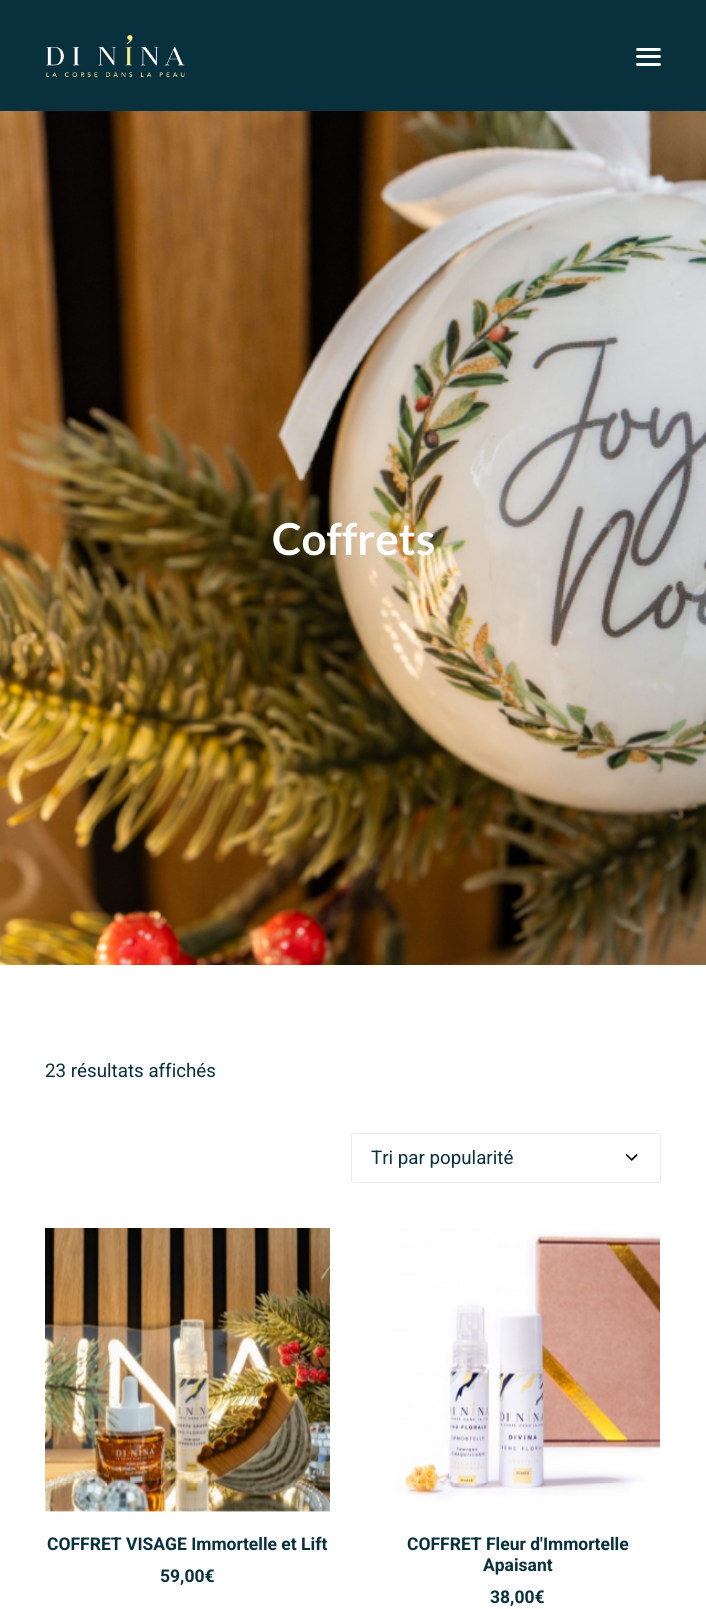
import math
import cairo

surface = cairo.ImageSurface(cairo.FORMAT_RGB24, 706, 1609)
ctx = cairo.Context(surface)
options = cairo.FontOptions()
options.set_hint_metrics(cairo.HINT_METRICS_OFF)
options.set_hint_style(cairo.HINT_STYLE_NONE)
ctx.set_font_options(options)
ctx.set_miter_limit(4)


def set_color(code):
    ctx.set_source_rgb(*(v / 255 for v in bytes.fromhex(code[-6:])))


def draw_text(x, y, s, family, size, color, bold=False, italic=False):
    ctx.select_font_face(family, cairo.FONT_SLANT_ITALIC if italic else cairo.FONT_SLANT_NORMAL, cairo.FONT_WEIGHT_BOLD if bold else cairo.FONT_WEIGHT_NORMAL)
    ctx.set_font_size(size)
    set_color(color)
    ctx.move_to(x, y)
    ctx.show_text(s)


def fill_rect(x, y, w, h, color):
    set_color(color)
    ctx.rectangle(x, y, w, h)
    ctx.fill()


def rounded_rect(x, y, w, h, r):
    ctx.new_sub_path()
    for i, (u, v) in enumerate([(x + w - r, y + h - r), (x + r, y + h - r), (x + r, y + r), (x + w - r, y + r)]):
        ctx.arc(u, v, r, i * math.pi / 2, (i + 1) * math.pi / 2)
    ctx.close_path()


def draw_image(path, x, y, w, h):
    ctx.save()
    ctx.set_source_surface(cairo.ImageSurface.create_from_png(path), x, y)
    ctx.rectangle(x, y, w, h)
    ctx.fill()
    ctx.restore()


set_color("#ffffff")
ctx.paint()
fill_rect(0, 0, 706, 111, "#09303d")
draw_image("assets/img1.png", 45, 34, 141, 44)
set_color("#ffffff")
rounded_rect(636, 55, 25, 3, 1.5)
ctx.fill()
rounded_rect(636, 48, 25, 3, 1.5)
ctx.fill()
rounded_rect(636, 63, 25, 3, 1.5)
ctx.fill()
draw_image("assets/img2.png", 0, 111, 706, 854)
draw_text(272, 555, "Coffrets", "Lato", 44, "#ffffff", bold=True)
draw_text(45, 1077, "23 résultats affichés", "Roboto", 18.75, "#09303d")
draw_image("assets/img3.png", 625, 1154, 13, 7)
rounded_rect(351.5, 1133.5, 309, 49, 2)
set_color("#eaeaea")
ctx.set_line_width(1)
ctx.stroke()
draw_text(371, 1164, "Tri par popularité", "Roboto", 18.75, "#09303d")
draw_image("assets/img4.png", 45, 1228, 285, 284)
draw_text(47, 1550, "COFFRET VISAGE Immortelle et Lift", "Roboto", 17.5, "#09303d", bold=True)
draw_text(160, 1582, "59,00€", "Roboto", 17.5, "#09303d", bold=True)
draw_image("assets/img5.png", 393, 1228, 267, 272)
draw_text(407, 1550, "COFFRET Fleur d'Immortelle", "Roboto", 17.5, "#09303d", bold=True)
draw_text(483, 1571, "Apaisant", "Roboto", 17.5, "#09303d", bold=True)
draw_text(490, 1603, "38,00€", "Roboto", 17.5, "#09303d", bold=True)
surface.write_to_png("output.png")
